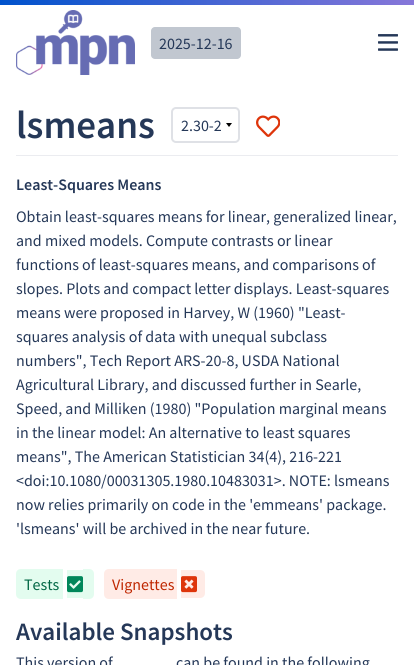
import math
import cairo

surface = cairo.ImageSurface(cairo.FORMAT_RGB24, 414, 665)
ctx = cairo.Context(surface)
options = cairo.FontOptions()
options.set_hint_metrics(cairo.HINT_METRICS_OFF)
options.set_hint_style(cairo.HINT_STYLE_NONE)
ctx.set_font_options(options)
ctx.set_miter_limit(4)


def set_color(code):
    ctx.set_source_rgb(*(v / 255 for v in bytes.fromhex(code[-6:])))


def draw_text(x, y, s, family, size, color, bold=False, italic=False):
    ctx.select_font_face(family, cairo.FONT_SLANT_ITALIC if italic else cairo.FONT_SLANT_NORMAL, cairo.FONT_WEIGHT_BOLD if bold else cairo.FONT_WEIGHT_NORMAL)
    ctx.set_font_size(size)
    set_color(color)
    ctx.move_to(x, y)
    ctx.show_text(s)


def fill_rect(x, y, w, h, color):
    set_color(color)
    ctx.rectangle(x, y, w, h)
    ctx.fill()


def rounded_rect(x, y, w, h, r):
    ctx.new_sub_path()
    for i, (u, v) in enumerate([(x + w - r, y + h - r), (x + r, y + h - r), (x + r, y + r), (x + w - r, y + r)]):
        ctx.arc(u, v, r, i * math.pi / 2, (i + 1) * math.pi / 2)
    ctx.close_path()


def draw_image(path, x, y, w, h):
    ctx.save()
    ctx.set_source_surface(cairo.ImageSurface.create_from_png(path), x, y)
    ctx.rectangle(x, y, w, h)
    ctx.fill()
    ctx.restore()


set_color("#ffffff")
ctx.paint()
gradient = cairo.LinearGradient(0, 2.5, 414, 2.5)
gradient.add_color_stop_rgba(0, 0, 0.322, 0.8, 1)
gradient.add_color_stop_rgba(1, 0.529, 0.467, 0.851, 1)
ctx.set_source(gradient)
ctx.rectangle(0, 0, 414, 5)
ctx.fill()
draw_image("assets/img1.png", 16, 10, 119, 65)
set_color("#c1c7d0")
rounded_rect(151, 27, 90, 32, 4)
ctx.fill()
draw_text(159, 49, "2025-12-16", "Source Sans Pro", 16, "#253858")
draw_image("assets/img2.png", 378, 34, 20, 17)
fill_rect(16, 155, 382, 1, "#ebecf0")
draw_text(16, 138, "lsmeans", "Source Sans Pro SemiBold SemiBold", 39, "#253858")
set_color("#000000")
ctx.new_path()
ctx.move_to(226, 123)
ctx.line_to(232, 123)
ctx.line_to(229, 127)
ctx.fill()
rounded_rect(172, 108, 67, 34, 4)
set_color("#dfe1e6")
ctx.stroke()
draw_text(181, 131, "2.30-2", "Source Sans Pro", 16, "#253858")
draw_image("assets/img3.png", 256, 115, 24, 22)
draw_text(16, 190, "Least-Squares Means", "Source Sans Pro SemiBold SemiBold", 16, "#253858")
draw_text(16, 222, "Obtain least-squares means for linear, generalized linear,", "Source Sans Pro", 16, "#253858")
draw_text(16, 246, "and mixed models. Compute contrasts or linear", "Source Sans Pro", 16, "#253858")
draw_text(16, 270, "functions of least-squares means, and comparisons of", "Source Sans Pro", 16, "#253858")
draw_text(16, 294, "slopes. Plots and compact letter displays. Least-squares", "Source Sans Pro", 16, "#253858")
draw_text(16, 318, "means were proposed in Harvey, W (1960) \"Least-", "Source Sans Pro", 16, "#253858")
draw_text(16, 342, "squares analysis of data with unequal subclass", "Source Sans Pro", 16, "#253858")
draw_text(16, 366, "numbers\", Tech Report ARS-20-8, USDA National", "Source Sans Pro", 16, "#253858")
draw_text(16, 390, "Agricultural Library, and discussed further in Searle,", "Source Sans Pro", 16, "#253858")
draw_text(16, 414, "Speed, and Milliken (1980) \"Population marginal means", "Source Sans Pro", 16, "#253858")
draw_text(16, 438, "in the linear model: An alternative to least squares", "Source Sans Pro", 16, "#253858")
draw_text(16, 462, "means\", The American Statistician 34(4), 216-221", "Source Sans Pro", 16, "#253858")
draw_text(16, 486, "<doi:10.1080/00031305.1980.10483031>. NOTE: lsmeans", "Source Sans Pro", 16, "#253858")
draw_text(16, 510, "now relies primarily on code in the 'emmeans' package.", "Source Sans Pro", 16, "#253858")
draw_text(16, 534, "'lsmeans' will be archived in the near future.", "Source Sans Pro", 16, "#253858")
set_color("#e3fcef")
ctx.new_path()
ctx.move_to(21, 569)
ctx.line_to(63, 569)
ctx.line_to(63, 599)
ctx.line_to(21, 599)
ctx.curve_to(18, 599, 16, 597, 16, 594)
ctx.line_to(16, 574)
ctx.curve_to(16, 571, 18, 569, 21, 569)
ctx.close_path()
ctx.fill()
draw_text(24, 590, "Tests", "Source Sans Pro", 16, "#006644")
fill_rect(67, 570, 16, 28, "#e3fcef")
ctx.new_path()
ctx.move_to(83, 569)
ctx.line_to(89, 569)
ctx.curve_to(92, 569, 94, 571, 94, 574)
ctx.line_to(94, 594)
ctx.curve_to(94, 597, 92, 599, 89, 599)
ctx.line_to(83, 599)
ctx.close_path()
ctx.fill()
draw_image("assets/img4.png", 67, 576, 16, 17)
set_color("#ffebe6")
ctx.new_path()
ctx.move_to(109, 569)
ctx.line_to(177, 569)
ctx.line_to(177, 599)
ctx.line_to(109, 599)
ctx.curve_to(106, 599, 104, 597, 104, 594)
ctx.line_to(104, 574)
ctx.curve_to(104, 571, 106, 569, 109, 569)
ctx.close_path()
ctx.fill()
draw_text(112, 590, "Vignettes", "Source Sans Pro", 16, "#bf2600")
set_color("#ffebe6")
ctx.new_path()
ctx.move_to(181, 570)
ctx.line_to(200, 570)
ctx.curve_to(203, 570, 205, 572, 205, 575)
ctx.line_to(205, 593)
ctx.curve_to(205, 596, 203, 598, 200, 598)
ctx.line_to(181, 598)
ctx.close_path()
ctx.fill()
draw_image("assets/img5.png", 181, 576, 16, 17)
draw_text(16, 640, "Available Snapshots", "Source Sans Pro SemiBold SemiBold", 25, "#253858")
draw_text(16, 668, "This version of", "Source Sans Pro", 16, "#253858")
draw_text(176, 668, "can be found in the following", "Source Sans Pro", 16, "#253858")
surface.write_to_png("output.png")
